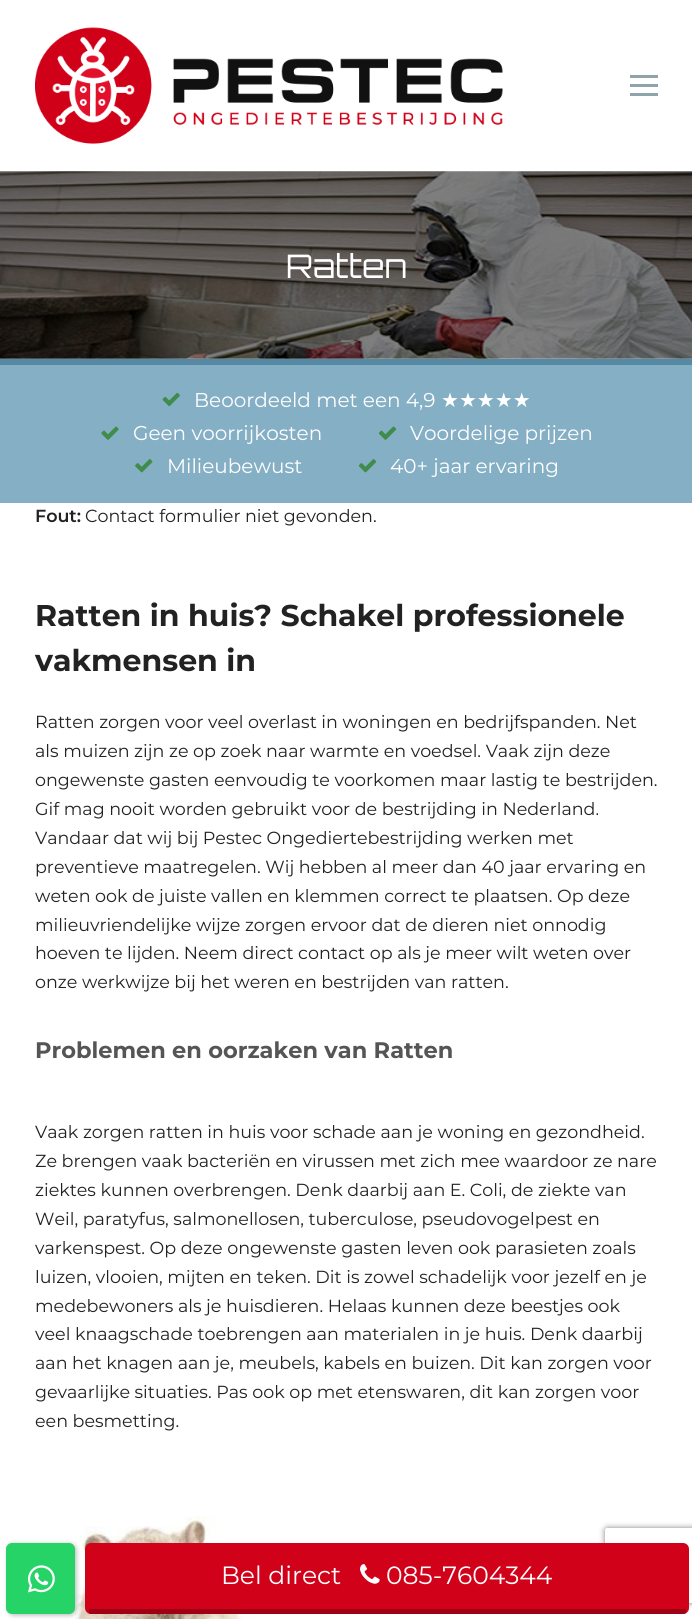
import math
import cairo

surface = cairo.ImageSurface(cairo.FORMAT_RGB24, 692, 1619)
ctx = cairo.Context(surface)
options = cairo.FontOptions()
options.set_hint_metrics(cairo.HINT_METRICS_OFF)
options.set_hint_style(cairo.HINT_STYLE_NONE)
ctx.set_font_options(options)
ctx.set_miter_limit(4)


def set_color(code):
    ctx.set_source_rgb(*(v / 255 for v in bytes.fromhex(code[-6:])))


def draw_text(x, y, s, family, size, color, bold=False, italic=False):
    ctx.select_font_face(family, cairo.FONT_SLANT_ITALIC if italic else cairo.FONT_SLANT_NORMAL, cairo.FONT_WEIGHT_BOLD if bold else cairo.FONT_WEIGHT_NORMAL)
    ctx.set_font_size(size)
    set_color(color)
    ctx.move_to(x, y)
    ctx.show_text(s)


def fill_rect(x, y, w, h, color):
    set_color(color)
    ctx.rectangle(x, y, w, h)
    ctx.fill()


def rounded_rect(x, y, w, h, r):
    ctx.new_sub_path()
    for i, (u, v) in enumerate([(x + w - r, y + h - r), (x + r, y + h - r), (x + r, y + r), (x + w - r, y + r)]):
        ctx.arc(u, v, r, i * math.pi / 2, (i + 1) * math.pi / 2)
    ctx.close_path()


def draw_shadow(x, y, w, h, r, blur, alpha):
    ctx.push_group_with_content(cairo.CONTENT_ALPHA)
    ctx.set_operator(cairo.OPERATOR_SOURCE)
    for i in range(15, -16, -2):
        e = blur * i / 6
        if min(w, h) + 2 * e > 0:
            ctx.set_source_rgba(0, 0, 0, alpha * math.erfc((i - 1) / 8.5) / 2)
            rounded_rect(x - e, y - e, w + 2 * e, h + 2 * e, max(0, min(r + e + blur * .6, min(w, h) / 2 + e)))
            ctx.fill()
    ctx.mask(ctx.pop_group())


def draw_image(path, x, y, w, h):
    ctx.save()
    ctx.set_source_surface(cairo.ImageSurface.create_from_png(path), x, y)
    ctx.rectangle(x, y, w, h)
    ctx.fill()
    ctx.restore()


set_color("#ffffff")
ctx.paint()
draw_image("assets/img1.png", 35, 27, 468, 117)
fill_rect(630, 84, 28, 3, "#8fa3ad")
fill_rect(630, 75, 28, 3, "#8fa3ad")
fill_rect(630, 93, 28, 3, "#8fa3ad")
draw_image("assets/img2.png", 0, 171, 692, 188)
draw_text(286, 278, "Ratten", "Orbitron", 32.5, "#ffffff")
fill_rect(0, 365, 692, 138, "#85afc4")
fill_rect(0, 359, 692, 6, "#568aa4")
draw_image("assets/img3.png", 162, 392, 18, 15)
draw_text(194, 407, "Beoordeeld met een 4,9", "Montserrat", 20, "#ffffff")
draw_text(441, 407, "★★★★★", "DejaVu Sans", 20, "#ffffff")
draw_image("assets/img4.png", 101, 426, 18, 14)
draw_text(133, 440, "Geen voorrijkosten", "Montserrat", 20, "#ffffff")
draw_image("assets/img5.png", 378, 426, 19, 14)
draw_text(410, 440, "Voordelige prijzen", "Montserrat", 20, "#ffffff")
draw_image("assets/img6.png", 135, 459, 18, 14)
draw_text(167, 473, "Milieubewust", "Montserrat", 20, "#ffffff")
draw_image("assets/img7.png", 358, 459, 19, 14)
draw_text(390, 473, "40+ jaar ervaring", "Montserrat", 20, "#ffffff")
draw_text(35, 522, "Fout:", "Montserrat SemiBold", 17.5, "#222222")
draw_text(85, 522, "Contact formulier niet gevonden.", "Montserrat", 17.5, "#222222")
draw_text(35, 626, "Ratten in huis? Schakel professionele", "Montserrat", 30, "#222222", bold=True)
draw_text(35, 671, "vakmensen in", "Montserrat", 30, "#222222", bold=True)
draw_text(35, 728, "Ratten zorgen voor veel overlast in woningen en bedrijfspanden. Net", "Montserrat", 17.5, "#222222")
draw_text(35, 757, "als muizen zijn ze op zoek naar warmte en voedsel. Vaak zijn deze", "Montserrat", 17.5, "#222222")
draw_text(35, 786, "ongewenste gasten eenvoudig te voorkomen maar lastig te bestrijden.", "Montserrat", 17.5, "#222222")
draw_text(35, 815, "Gif mag nooit worden gebruikt voor de bestrijding in Nederland.", "Montserrat", 17.5, "#222222")
draw_text(35, 844, "Vandaar dat wij bij Pestec Ongediertebestrijding werken met", "Montserrat", 17.5, "#222222")
draw_text(35, 873, "preventieve maatregelen. Wij hebben al meer dan 40 jaar ervaring en", "Montserrat", 17.5, "#222222")
draw_text(35, 902, "weten ook de juiste vallen en klemmen correct te plaatsen. Op deze", "Montserrat", 17.5, "#222222")
draw_text(35, 931, "milieuvriendelijke wijze zorgen ervoor dat de dieren niet onnodig", "Montserrat", 17.5, "#222222")
draw_text(35, 959, "hoeven te lijden. Neem direct contact op als je meer wilt weten over", "Montserrat", 17.5, "#222222")
draw_text(35, 988, "onze werkwijze bij het weren en bestrijden van ratten.", "Montserrat", 17.5, "#222222")
draw_text(35, 1058, "Problemen en oorzaken van Ratten", "Montserrat", 22.5, "#555555", bold=True)
draw_text(35, 1138, "Vaak zorgen ratten in huis voor schade aan je woning en gezondheid.", "Montserrat", 17.5, "#222222")
draw_text(35, 1167, "Ze brengen vaak bacteriën en virussen met zich mee waardoor ze nare", "Montserrat", 17.5, "#222222")
draw_text(35, 1196, "ziektes kunnen overbrengen. Denk daarbij aan E. Coli, de ziekte van", "Montserrat", 17.5, "#222222")
draw_text(35, 1225, "Weil, paratyfus, salmonellosen, tuberculose, pseudovogelpest en", "Montserrat", 17.5, "#222222")
draw_text(35, 1254, "varkenspest. Op deze ongewenste gasten leven ook parasieten zoals", "Montserrat", 17.5, "#222222")
draw_text(35, 1283, "luizen, vlooien, mijten en teken. Dit is zowel schadelijk voor jezelf en je", "Montserrat", 17.5, "#222222")
draw_text(35, 1312, "medebewoners als je huisdieren. Helaas kunnen deze beestjes ook", "Montserrat", 17.5, "#222222")
draw_text(35, 1340, "veel knaagschade toebrengen aan materialen in je huis. Denk daarbij", "Montserrat", 17.5, "#222222")
draw_text(35, 1369, "aan het knagen aan je, meubels, kabels en buizen. Dit kan zorgen voor", "Montserrat", 17.5, "#222222")
draw_text(35, 1398, "gevaarlijke situaties. Pas ook op met etenswaren, dit kan zorgen voor", "Montserrat", 17.5, "#222222")
draw_text(35, 1427, "een besmetting.", "Montserrat", 17.5, "#222222")
draw_image("assets/img8.png", 75, 1516, 180, 103)
ctx.save()
ctx.set_fill_rule(cairo.FILL_RULE_EVEN_ODD)
ctx.new_path()
ctx.move_to(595, 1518)
ctx.line_to(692, 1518)
ctx.line_to(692, 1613)
ctx.line_to(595, 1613)
ctx.close_path()
ctx.move_to(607.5, 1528)
ctx.line_to(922.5, 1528)
ctx.curve_to(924, 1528, 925, 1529, 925, 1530.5)
ctx.line_to(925, 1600.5)
ctx.curve_to(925, 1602, 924, 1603, 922.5, 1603)
ctx.line_to(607.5, 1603)
ctx.curve_to(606, 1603, 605, 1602, 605, 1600.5)
ctx.line_to(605, 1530.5)
ctx.curve_to(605, 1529, 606, 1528, 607.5, 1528)
ctx.close_path()
ctx.clip()
set_color("#808080")
draw_shadow(605, 1528, 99, 75, 2.5, 3, 1)
ctx.restore()
set_color("#000000")
draw_shadow(8, 1544, 68, 71, 6, 2.5, 0.3)
set_color("#25d366")
rounded_rect(6, 1543, 69, 71, 6)
ctx.fill()
draw_image("assets/img9.png", 27, 1565, 28, 28)
set_color("#d10119")
rounded_rect(85, 1543, 604, 71, 6)
ctx.fill()
ctx.set_source_rgba(0, 0, 0, 0.25)
ctx.rectangle(89, 1609, 597, 5)
ctx.fill()
draw_text(221, 1584, "Bel direct", "Montserrat", 25, "#ffffff")
draw_image("assets/img10.png", 360, 1564, 20, 20)
draw_text(386, 1584, "085-7604344", "Montserrat", 25, "#ffffff")
surface.write_to_png("output.png")
